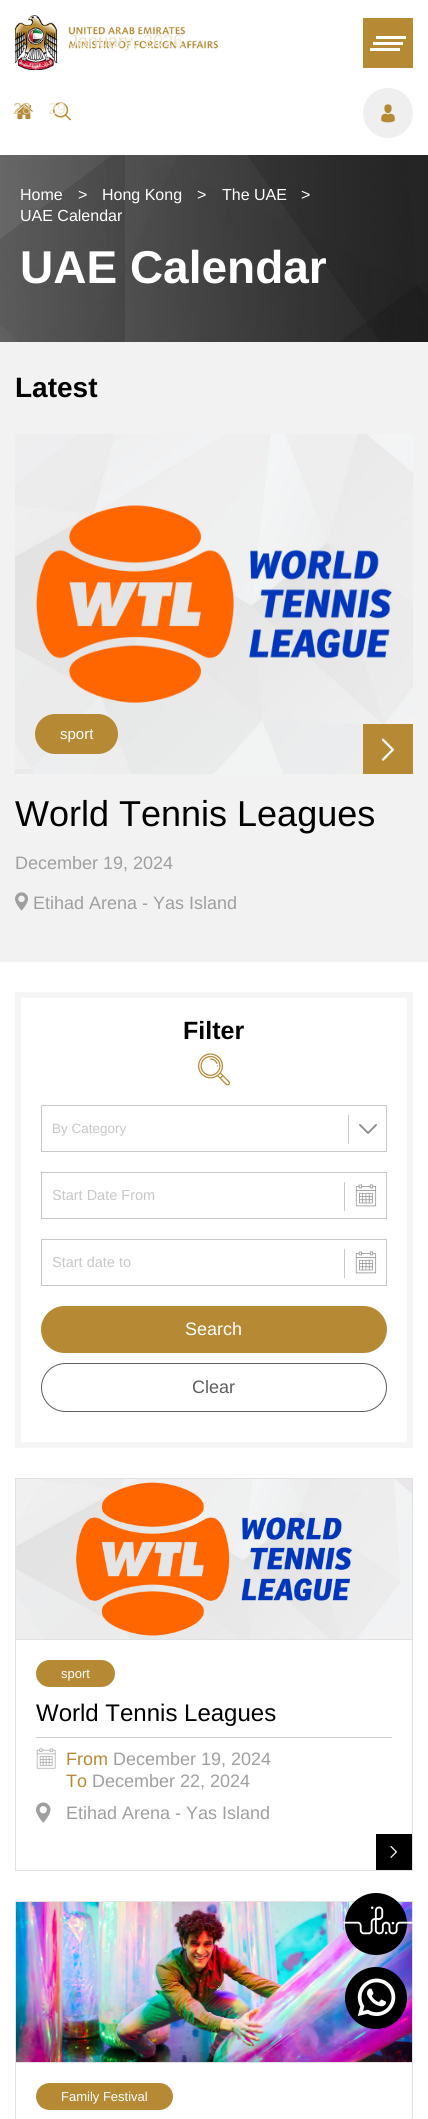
import math
import cairo

surface = cairo.ImageSurface(cairo.FORMAT_RGB24, 428, 2119)
ctx = cairo.Context(surface)
options = cairo.FontOptions()
options.set_hint_metrics(cairo.HINT_METRICS_OFF)
options.set_hint_style(cairo.HINT_STYLE_NONE)
ctx.set_font_options(options)
ctx.set_miter_limit(4)


def set_color(code):
    ctx.set_source_rgb(*(v / 255 for v in bytes.fromhex(code[-6:])))


def draw_text(x, y, s, family, size, color, bold=False, italic=False):
    ctx.select_font_face(family, cairo.FONT_SLANT_ITALIC if italic else cairo.FONT_SLANT_NORMAL, cairo.FONT_WEIGHT_BOLD if bold else cairo.FONT_WEIGHT_NORMAL)
    ctx.set_font_size(size)
    set_color(color)
    ctx.move_to(x, y)
    ctx.show_text(s)


def fill_rect(x, y, w, h, color):
    set_color(color)
    ctx.rectangle(x, y, w, h)
    ctx.fill()


def rounded_rect(x, y, w, h, r):
    ctx.new_sub_path()
    for i, (u, v) in enumerate([(x + w - r, y + h - r), (x + r, y + h - r), (x + r, y + r), (x + w - r, y + r)]):
        ctx.arc(u, v, r, i * math.pi / 2, (i + 1) * math.pi / 2)
    ctx.close_path()


def draw_image(path, x, y, w, h):
    ctx.save()
    ctx.set_source_surface(cairo.ImageSurface.create_from_png(path), x, y)
    ctx.rectangle(x, y, w, h)
    ctx.fill()
    ctx.restore()


set_color("#ffffff")
ctx.paint()
draw_image("assets/img1.png", 15, 15, 203, 55)
fill_rect(363, 18, 50, 50, "#b68a35")
fill_rect(373, 42, 30, 3, "#ffffff")
fill_rect(376, 36, 30, 3, "#ffffff")
fill_rect(370, 48, 30, 3, "#ffffff")
draw_image("assets/img2.png", 15, 103, 18, 17)
draw_image("assets/img3.png", 53, 102, 18, 19)
set_color("#efefef")
ctx.arc(388, 113, 25, 0, 2 * math.pi)
ctx.fill()
draw_image("assets/img4.png", 381, 104, 14, 19)
draw_text(69, 47, "January,", "Liberation Sans", 18, "#ece0ca")
draw_text(143, 47, "2026", "Liberation Sans", 18, "#f1e8d8")
draw_text(13, 114, "28", "Liberation Sans", 16, "#d9c296")
draw_text(48, 114, "29", "Liberation Sans", 16, "#f1e8d8")
draw_image("assets/img5.png", 0, 155, 428, 187)
draw_text(20, 200, "Home", "Liberation Sans", 16, "#ffffff")
draw_text(78, 200, ">", "Liberation Sans", 16, "#ffffff")
draw_text(102, 200, "Hong Kong", "Liberation Sans", 16, "#ffffff")
draw_text(197, 200, ">", "Liberation Sans", 16, "#ffffff")
draw_text(222, 200, "The UAE", "Liberation Sans", 16, "#ffffff")
draw_text(301, 200, ">", "Liberation Sans", 16, "#ffffff")
draw_text(20, 221, "UAE Calendar", "Liberation Sans", 16, "#ffffff")
draw_text(20, 283, "UAE Calendar", "Liberation Sans", 46, "#ffffff", bold=True)
fill_rect(0, 342, 428, 620, "#f2f2f2")
draw_text(15, 397, "Latest", "Liberation Sans", 28, "#000000", bold=True)
draw_image("assets/img6.png", 15, 434, 398, 340)
set_color("#b68a35")
rounded_rect(35, 714, 83, 40, 20)
ctx.fill()
draw_text(60, 739, "sport", "Liberation Sans", 15, "#ffffff")
fill_rect(363, 724, 50, 50, "#b68a35")
draw_image("assets/img7.png", 381, 738, 13, 23)
draw_text(15, 826, "World Tennis Leagues", "Liberation Sans", 36, "#000000")
draw_text(15, 869, "December 19, 2024", "Liberation Sans", 18, "#9f9f9f")
draw_image("assets/img8.png", 15, 892, 13, 19)
draw_text(33, 909, "Etihad Arena - Yas Island", "Liberation Sans", 18, "#9f9f9f")
ctx.rectangle(18, 995, 392, 450)
set_color("#f5f5f5")
ctx.set_line_width(6)
ctx.stroke()
draw_text(183, 1039, "Filter", "Liberation Sans", 25, "#000000", bold=True)
draw_image("assets/img9.png", 198, 1053, 32, 33)
ctx.rectangle(41.5, 1105.5, 345, 46)
set_color("#c7c7c7")
ctx.set_line_width(1)
ctx.stroke()
draw_text(52, 1133, "By Category", "Liberation Sans", 13.5, "#c7c7c7")
fill_rect(348, 1115, 1, 29, "#c9c9c9")
draw_image("assets/img10.png", 359, 1124, 18, 10)
ctx.rectangle(41.5, 1172.5, 345, 46)
set_color("#c7c7c7")
ctx.stroke()
draw_text(52, 1200, "Start Date From", "Liberation Sans", 14.5, "#c7c7c7")
fill_rect(344, 1182, 1, 29, "#c9c9c9")
draw_image("assets/img11.png", 355, 1184, 22, 23)
ctx.rectangle(41.5, 1239.5, 345, 46)
set_color("#c7c7c7")
ctx.stroke()
draw_text(52, 1267, "Start date to", "Liberation Sans", 14.5, "#c7c7c7")
fill_rect(344, 1249, 1, 29, "#c9c9c9")
draw_image("assets/img11.png", 355, 1251, 22, 23)
set_color("#b68a35")
rounded_rect(41, 1306, 346, 47, 23.5)
ctx.fill()
draw_text(185, 1335, "Search", "Liberation Sans", 18, "#ffffff")
rounded_rect(41.5, 1363.5, 345, 48, 24)
set_color("#5d5d5d")
ctx.stroke()
draw_text(192, 1393, "Clear", "Liberation Sans", 18, "#5d5d5d")
ctx.rectangle(15.5, 1478.5, 397, 392)
set_color("#e1e1e1")
ctx.stroke()
draw_image("assets/img12.png", 16, 1479, 396, 160)
fill_rect(16, 1639, 396, 1, "#e1e1e1")
set_color("#b68a35")
rounded_rect(36, 1660, 79, 27, 13.5)
ctx.fill()
draw_text(61, 1678, "sport", "Liberation Sans", 13, "#ffffff")
draw_text(36, 1721, "World Tennis Leagues", "Liberation Sans", 24, "#000000")
fill_rect(36, 1737, 356, 1, "#d0d0d0")
draw_image("assets/img13.png", 36, 1748, 20, 21)
draw_text(66, 1765, "From", "Liberation Sans", 18, "#b68a35")
draw_text(113, 1765, "December 19, 2024", "Liberation Sans", 18, "#9f9f9f")
draw_text(66, 1787, "To", "Liberation Sans", 18, "#b68a35")
draw_text(92, 1787, "December 22, 2024", "Liberation Sans", 18, "#9f9f9f")
draw_image("assets/img14.png", 36, 1802, 15, 21)
draw_text(66, 1819, "Etihad Arena - Yas Island", "Liberation Sans", 18, "#9f9f9f")
fill_rect(376, 1834, 36, 36, "#000000")
draw_image("assets/img15.png", 390, 1846, 7, 12)
ctx.rectangle(15.5, 1901.5, 397, 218)
set_color("#e1e1e1")
ctx.stroke()
draw_image("assets/img16.png", 16, 1902, 396, 160)
fill_rect(16, 2062, 396, 1, "#e1e1e1")
set_color("#b68a35")
rounded_rect(36, 2083, 137, 27, 13.5)
ctx.fill()
draw_text(61, 2101, "Family Festival", "Liberation Sans", 13, "#ffffff")
set_color("#000000")
ctx.new_path()
ctx.arc(376, 1924, 31, 0, 2 * math.pi)
ctx.fill()
draw_image("assets/img17.png", 343, 1906, 70, 29)
ctx.arc(376, 1998, 31, 0, 2 * math.pi)
ctx.fill()
draw_image("assets/img18.png", 357, 1978, 39, 38)
surface.write_to_png("output.png")
